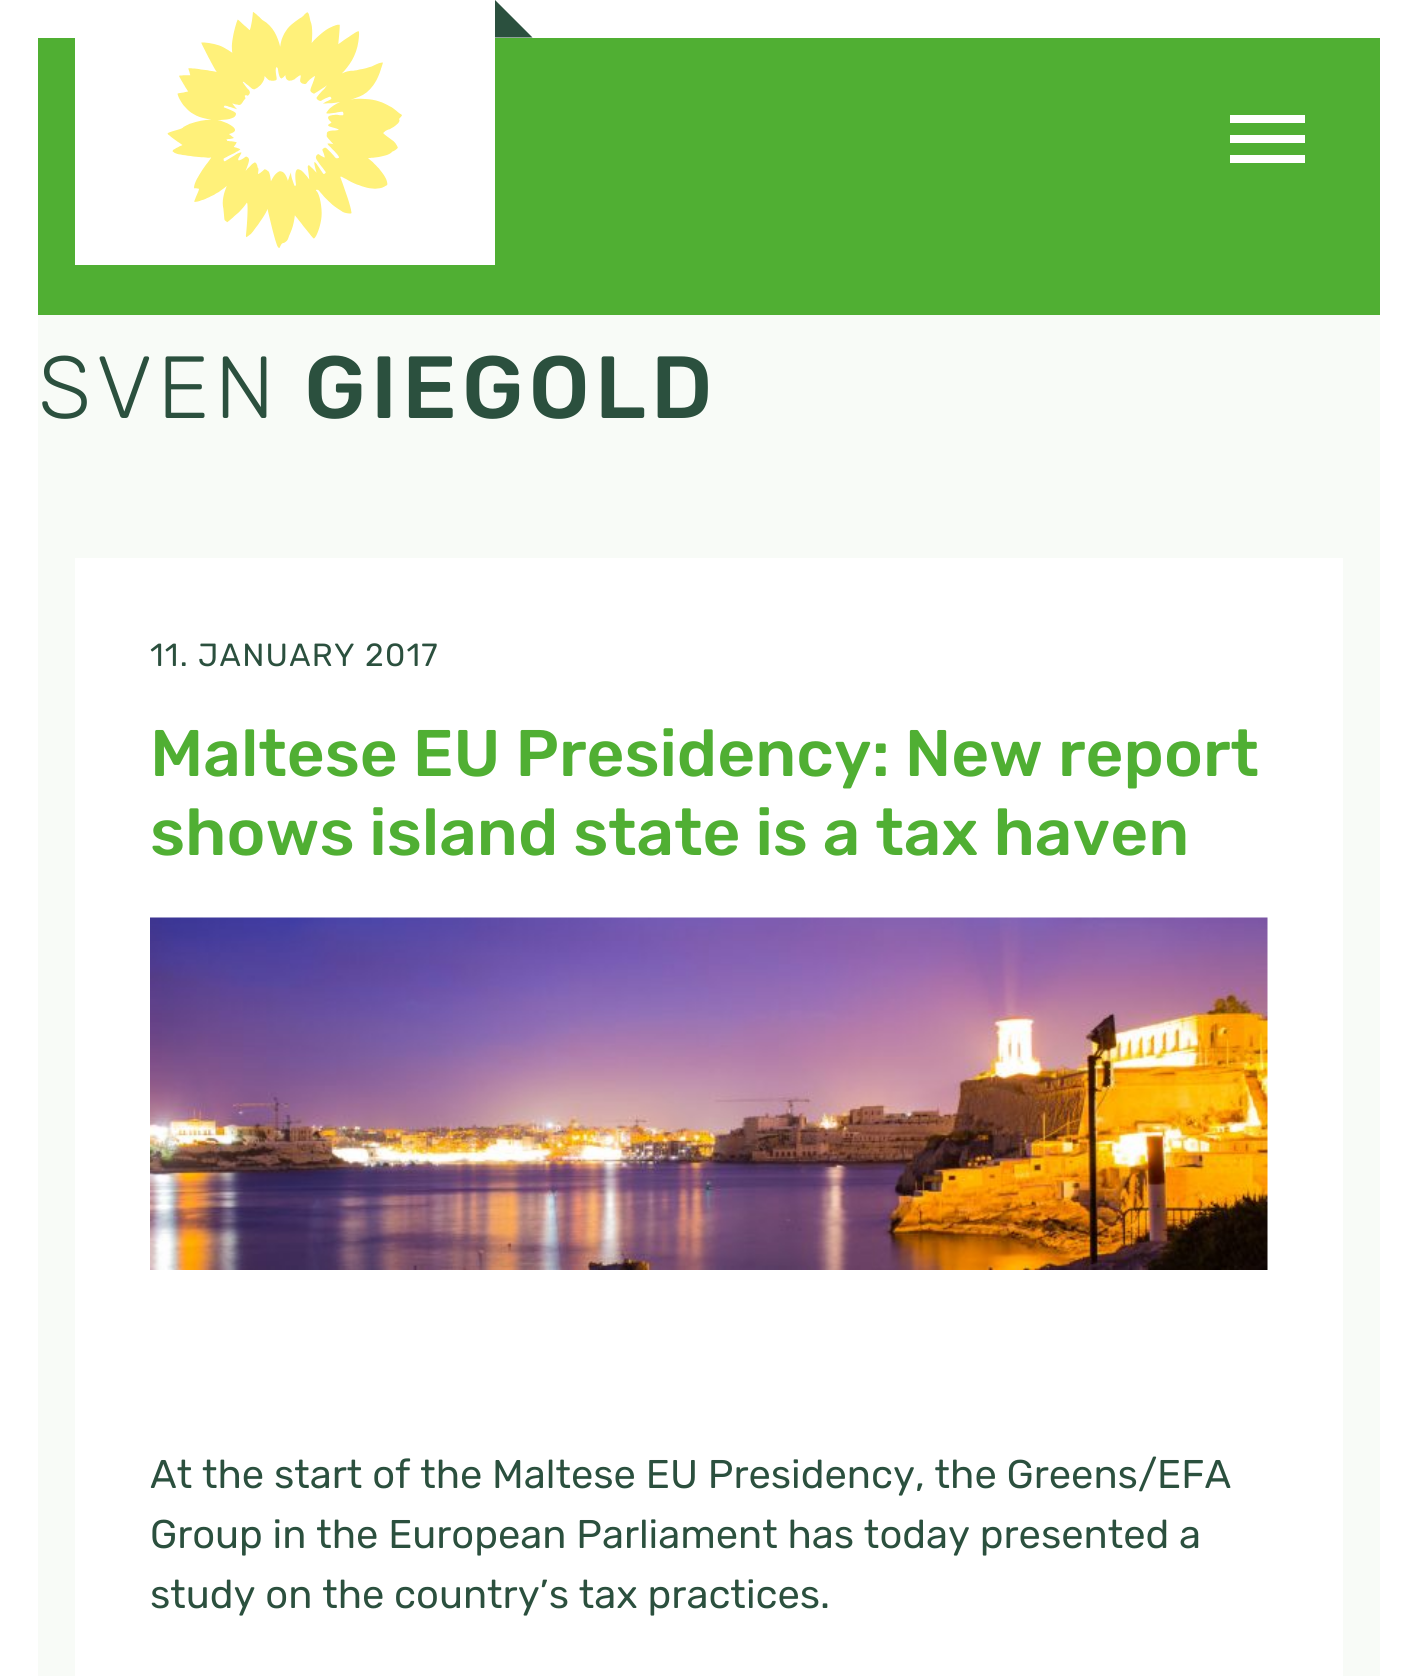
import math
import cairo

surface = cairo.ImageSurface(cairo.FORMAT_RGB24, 1416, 1676)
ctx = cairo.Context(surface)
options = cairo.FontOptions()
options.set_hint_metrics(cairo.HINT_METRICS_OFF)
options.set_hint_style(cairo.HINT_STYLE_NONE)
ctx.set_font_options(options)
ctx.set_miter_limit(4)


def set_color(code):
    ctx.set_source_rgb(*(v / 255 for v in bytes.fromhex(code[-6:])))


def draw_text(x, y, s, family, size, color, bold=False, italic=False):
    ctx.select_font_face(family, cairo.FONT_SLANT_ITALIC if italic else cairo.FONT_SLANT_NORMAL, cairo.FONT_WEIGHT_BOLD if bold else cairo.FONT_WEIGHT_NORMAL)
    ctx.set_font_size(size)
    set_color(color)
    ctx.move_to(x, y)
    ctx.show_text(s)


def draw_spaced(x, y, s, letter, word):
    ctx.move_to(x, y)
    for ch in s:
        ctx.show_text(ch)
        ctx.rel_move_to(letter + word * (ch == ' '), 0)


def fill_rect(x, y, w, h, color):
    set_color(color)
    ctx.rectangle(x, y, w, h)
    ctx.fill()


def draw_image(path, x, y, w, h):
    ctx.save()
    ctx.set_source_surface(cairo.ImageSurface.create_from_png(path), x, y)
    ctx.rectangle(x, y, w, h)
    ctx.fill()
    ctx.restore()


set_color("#ffffff")
ctx.paint()
fill_rect(38, 38, 1342, 277, "#50af33")
fill_rect(1230, 135, 75, 8, "#ffffff")
fill_rect(1230, 115, 75, 8, "#ffffff")
fill_rect(1230, 155, 75, 8, "#ffffff")
fill_rect(38, 315, 1342, 1361, "#f8fbf7")
fill_rect(75, 38, 420, 227, "#ffffff")
draw_image("assets/img1.png", 167, 12, 235, 236)
set_color("#2b503e")
ctx.new_path()
ctx.move_to(495, 37.5)
ctx.line_to(495, 0)
ctx.line_to(532.5, 37.5)
ctx.close_path()
ctx.fill()
ctx.select_font_face("Rubik Light")
ctx.set_font_size(88)
draw_spaced(38, 418, "SVEN", 5, 0)
ctx.select_font_face("Rubik Medium")
draw_spaced(304, 418, "GIEGOLD", 5, 0)
fill_rect(75, 558, 1268, 1118, "#ffffff")
ctx.select_font_face("Rubik")
ctx.set_font_size(32)
set_color("#2b503e")
draw_spaced(150, 666, "11. JANUARY 2017", 1.25, 0)
draw_text(150, 776, "Maltese EU Presidency: New report", "Rubik Medium", 65.75, "#50af33")
draw_text(150, 855, "shows island state is a tax haven", "Rubik Medium", 65.75, "#50af33")
draw_image("assets/img2.png", 150, 917, 1118, 353)
draw_text(150, 1488, "At the start of the Maltese EU Presidency, the Greens/EFA", "Rubik", 40, "#2b503e")
draw_text(150, 1548, "Group in the European Parliament has today presented a", "Rubik", 40, "#2b503e")
draw_text(150, 1608, "study on the country’s tax practices.", "Rubik", 40, "#2b503e")
surface.write_to_png("output.png")
